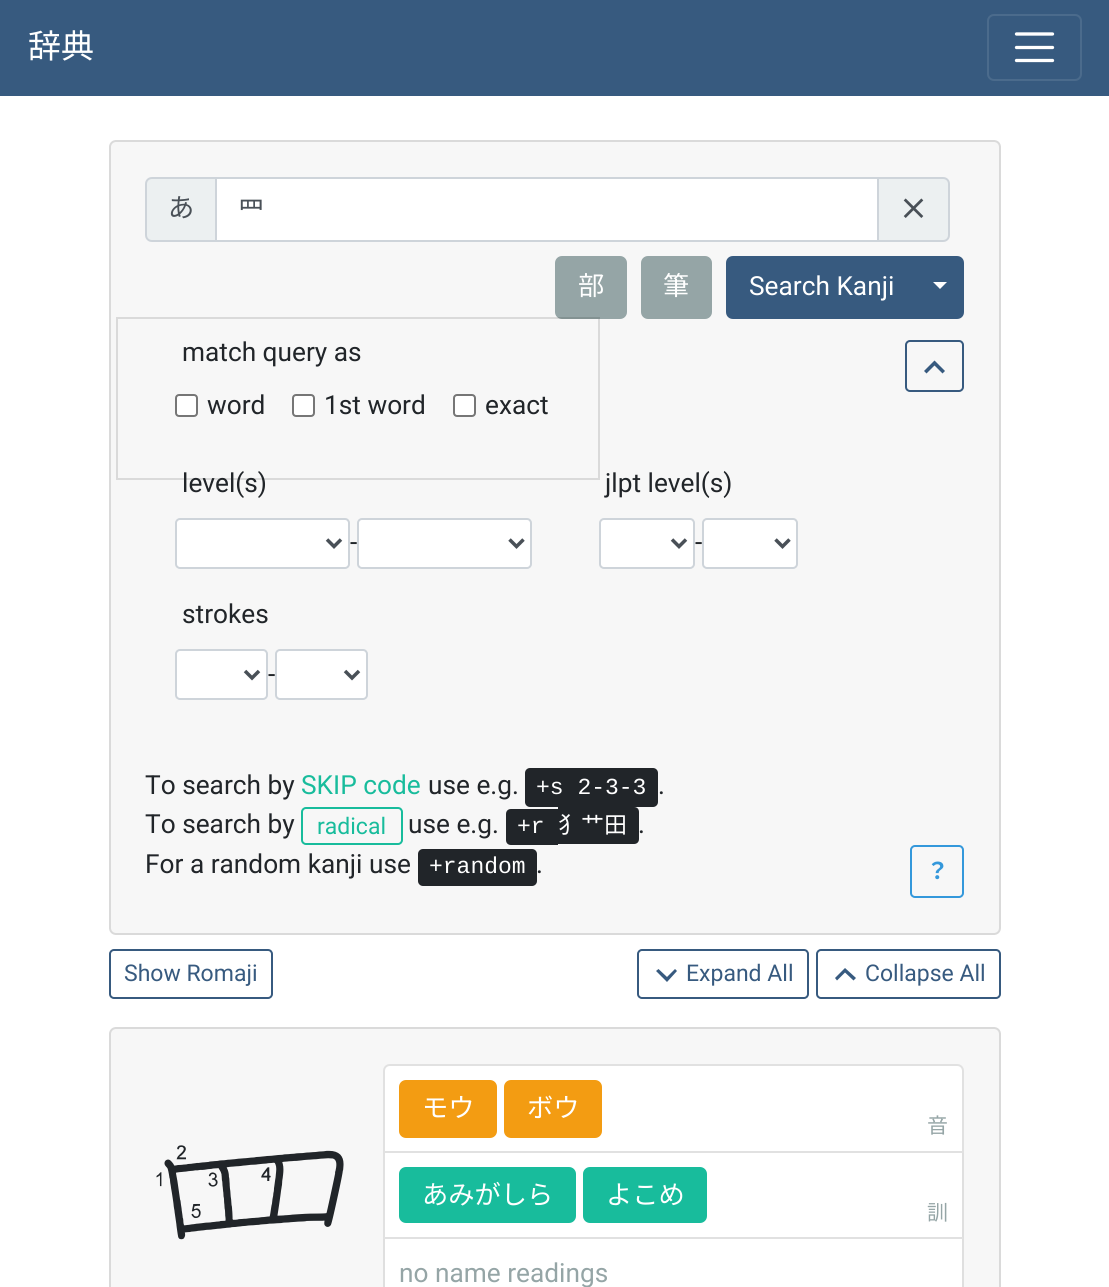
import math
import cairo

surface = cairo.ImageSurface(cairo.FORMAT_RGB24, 1109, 1287)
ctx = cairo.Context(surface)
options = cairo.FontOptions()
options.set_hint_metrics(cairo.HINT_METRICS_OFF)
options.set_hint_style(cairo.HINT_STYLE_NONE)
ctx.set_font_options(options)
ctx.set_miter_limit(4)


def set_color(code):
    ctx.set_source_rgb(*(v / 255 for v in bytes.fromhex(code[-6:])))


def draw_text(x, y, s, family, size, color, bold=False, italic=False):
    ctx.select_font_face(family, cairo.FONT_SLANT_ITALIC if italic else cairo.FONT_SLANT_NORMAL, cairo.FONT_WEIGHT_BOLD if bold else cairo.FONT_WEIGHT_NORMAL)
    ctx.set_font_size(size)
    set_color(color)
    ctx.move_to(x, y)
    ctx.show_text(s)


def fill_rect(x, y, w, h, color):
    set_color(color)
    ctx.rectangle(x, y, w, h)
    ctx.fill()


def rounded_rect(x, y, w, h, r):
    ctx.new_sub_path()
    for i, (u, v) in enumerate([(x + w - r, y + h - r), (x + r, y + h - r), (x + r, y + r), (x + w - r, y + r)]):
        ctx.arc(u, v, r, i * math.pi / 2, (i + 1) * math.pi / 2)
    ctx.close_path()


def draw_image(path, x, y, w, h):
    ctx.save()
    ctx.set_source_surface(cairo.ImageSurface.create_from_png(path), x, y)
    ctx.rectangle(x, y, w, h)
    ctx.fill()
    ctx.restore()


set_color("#ffffff")
ctx.paint()
fill_rect(0, 0, 1109, 96, "#375a7f")
draw_text(28, 58, "辞典", "Noto Sans CJK JP", 33, "#ffffff")
rounded_rect(988, 15, 93, 65, 6)
set_color("#4b6b8c")
ctx.stroke()
ctx.new_path()
ctx.move_to(1016.5, 34)
ctx.line_to(1052.5, 34)
ctx.move_to(1016.5, 47.5)
ctx.line_to(1052.5, 47.5)
ctx.move_to(1016.5, 60.5)
ctx.line_to(1052.5, 60.5)
set_color("#ffffff")
ctx.set_line_width(3.3)
ctx.set_line_cap(cairo.LINE_CAP_ROUND)
ctx.stroke()
set_color("#f7f7f7")
rounded_rect(109, 140, 892, 795, 7)
ctx.fill()
rounded_rect(110, 141, 890, 793, 6)
ctx.set_source_rgba(0, 0, 0, 0.12)
ctx.set_line_width(2)
ctx.set_line_cap(cairo.LINE_CAP_BUTT)
ctx.stroke()
set_color("#ffffff")
ctx.rectangle(216, 178, 662, 63)
ctx.fill_preserve()
set_color("#ced4da")
ctx.stroke()
set_color("#ecf0f1")
ctx.new_path()
ctx.move_to(152, 178)
ctx.line_to(216, 178)
ctx.line_to(216, 241)
ctx.line_to(152, 241)
ctx.curve_to(148.5, 241, 146, 238.5, 146, 235)
ctx.line_to(146, 184)
ctx.curve_to(146, 180.5, 148.5, 178, 152, 178)
ctx.close_path()
ctx.fill_preserve()
set_color("#ced4da")
ctx.stroke()
draw_text(168, 217, "あ", "Noto Sans CJK JP", 26.25, "#495057")
draw_text(238, 220, "罒", "Noto Sans CJK JP", 26.25, "#495057")
set_color("#ecf0f1")
ctx.new_path()
ctx.move_to(878, 178)
ctx.line_to(943, 178)
ctx.curve_to(946.5, 178, 949, 180.5, 949, 184)
ctx.line_to(949, 235)
ctx.curve_to(949, 238.5, 946.5, 241, 943, 241)
ctx.line_to(878, 241)
ctx.close_path()
ctx.fill_preserve()
set_color("#ced4da")
ctx.stroke()
draw_image("assets/img1.png", 903, 198, 21, 20)
set_color("#95a5a6")
rounded_rect(556, 257, 70, 61, 6)
ctx.fill_preserve()
ctx.stroke()
draw_text(578, 295, "部", "Noto Sans CJK JP", 26.25, "#ffffff")
set_color("#95a5a6")
rounded_rect(642, 257, 69, 61, 6)
ctx.fill_preserve()
ctx.stroke()
draw_text(663, 295, "筆", "Noto Sans CJK JP", 26.25, "#ffffff")
set_color("#375a7f")
ctx.new_path()
ctx.move_to(733, 257)
ctx.line_to(916, 257)
ctx.line_to(916, 318)
ctx.line_to(733, 318)
ctx.curve_to(729.5, 318, 727, 315.5, 727, 312)
ctx.line_to(727, 263)
ctx.curve_to(727, 259.5, 729.5, 257, 733, 257)
ctx.close_path()
ctx.fill_preserve()
ctx.stroke()
draw_text(749, 295, "Search Kanji", "Roboto", 26.25, "#ffffff")
set_color("#375a7f")
ctx.new_path()
ctx.move_to(916, 257)
ctx.line_to(957, 257)
ctx.curve_to(960.5, 257, 963, 259.5, 963, 263)
ctx.line_to(963, 312)
ctx.curve_to(963, 315.5, 960.5, 318, 957, 318)
ctx.line_to(916, 318)
ctx.close_path()
ctx.fill_preserve()
ctx.stroke()
set_color("#ffffff")
ctx.new_path()
ctx.move_to(933, 282)
ctx.line_to(947, 282)
ctx.line_to(940, 289)
ctx.close_path()
ctx.fill()
ctx.rectangle(117, 318, 482, 161)
ctx.set_source_rgba(0, 0, 0, 0.12)
ctx.stroke()
draw_text(182, 361, "match query as", "Roboto", 26.25, "#212529")
set_color("#ffffff")
rounded_rect(176, 395, 21, 21, 3)
ctx.fill_preserve()
set_color("#767676")
ctx.stroke()
draw_text(207, 414, "word", "Roboto", 26.25, "#212529")
set_color("#ffffff")
rounded_rect(293, 395, 21, 21, 3)
ctx.fill_preserve()
set_color("#767676")
ctx.stroke()
draw_text(324, 414, "1st word", "Roboto", 26.25, "#212529")
set_color("#ffffff")
rounded_rect(454, 395, 21, 21, 3)
ctx.fill_preserve()
set_color("#767676")
ctx.stroke()
draw_text(485, 414, "exact", "Roboto", 26.25, "#212529")
rounded_rect(906, 341, 57, 50, 4)
set_color("#375a7f")
ctx.stroke()
ctx.new_path()
ctx.move_to(934.5, 360.5)
ctx.line_to(924, 371)
ctx.line_to(926.5, 373.5)
ctx.line_to(934.5, 365.5)
ctx.line_to(942.5, 373.5)
ctx.line_to(945, 371)
ctx.close_path()
ctx.fill()
draw_text(182, 492, "level(s)", "Roboto", 26.25, "#212529")
set_color("#ffffff")
rounded_rect(176, 519, 173, 49, 4)
ctx.fill_preserve()
set_color("#ced4da")
ctx.stroke()
ctx.new_path()
ctx.move_to(327, 539.5)
ctx.line_to(334, 546.5)
ctx.line_to(341, 539.5)
set_color("#495057")
ctx.set_line_width(3.5)
ctx.stroke()
draw_text(350, 551, "-", "Roboto", 26.25, "#212529")
set_color("#ffffff")
rounded_rect(358, 519, 173, 49, 4)
ctx.fill_preserve()
set_color("#ced4da")
ctx.set_line_width(2)
ctx.stroke()
ctx.new_path()
ctx.move_to(509.5, 539.5)
ctx.line_to(516.5, 546.5)
ctx.line_to(523.5, 539.5)
set_color("#495057")
ctx.set_line_width(3.5)
ctx.stroke()
draw_text(605, 492, "jlpt level(s)", "Roboto", 26.25, "#212529")
set_color("#ffffff")
rounded_rect(600, 519, 94, 49, 4)
ctx.fill_preserve()
set_color("#ced4da")
ctx.set_line_width(2)
ctx.stroke()
ctx.new_path()
ctx.move_to(672, 539.5)
ctx.line_to(679, 546.5)
ctx.line_to(686, 539.5)
set_color("#495057")
ctx.set_line_width(3.5)
ctx.stroke()
draw_text(695, 551, "-", "Roboto", 26.25, "#212529")
set_color("#ffffff")
rounded_rect(703, 519, 94, 49, 4)
ctx.fill_preserve()
set_color("#ced4da")
ctx.set_line_width(2)
ctx.stroke()
ctx.new_path()
ctx.move_to(775.5, 539.5)
ctx.line_to(782.5, 546.5)
ctx.line_to(789.5, 539.5)
set_color("#495057")
ctx.set_line_width(3.5)
ctx.stroke()
draw_text(182, 623, "strokes", "Roboto", 26.25, "#212529")
set_color("#ffffff")
rounded_rect(176, 650, 91, 49, 4)
ctx.fill_preserve()
set_color("#ced4da")
ctx.set_line_width(2)
ctx.stroke()
ctx.new_path()
ctx.move_to(245, 671)
ctx.line_to(252, 678)
ctx.line_to(259, 671)
set_color("#495057")
ctx.set_line_width(3.5)
ctx.stroke()
draw_text(268, 683, "-", "Roboto", 26.25, "#212529")
set_color("#ffffff")
rounded_rect(276, 650, 91, 49, 4)
ctx.fill_preserve()
set_color("#ced4da")
ctx.set_line_width(2)
ctx.stroke()
ctx.new_path()
ctx.move_to(345, 671)
ctx.line_to(352, 678)
ctx.line_to(359, 671)
set_color("#495057")
ctx.set_line_width(3.5)
ctx.stroke()
draw_text(145, 794, "To search by", "Roboto", 26.25, "#212529")
draw_text(301, 794, "SKIP code", "Roboto", 26.25, "#18bc9c")
draw_text(428, 794, "use e.g.", "Roboto", 26.25, "#212529")
rounded_rect(525, 768, 133, 39, 5)
ctx.fill()
draw_text(536, 794, "+s 2-3-3", "Liberation Mono", 23, "#ffffff")
draw_text(658, 794, ".", "Roboto", 26.25, "#212529")
draw_text(145, 833, "To search by", "Roboto", 26.25, "#212529")
rounded_rect(302, 808, 100, 36, 4)
set_color("#18bc9c")
ctx.set_line_width(2)
ctx.stroke()
draw_text(317, 834, "radical", "Roboto", 23, "#18bc9c")
draw_text(408, 833, "use e.g.", "Roboto", 26.25, "#212529")
ctx.new_path()
ctx.move_to(511, 809)
ctx.line_to(558, 809)
ctx.line_to(558, 845)
ctx.line_to(511, 845)
ctx.curve_to(508, 845, 506, 843, 506, 840)
ctx.line_to(506, 814)
ctx.curve_to(506, 811, 508, 809, 511, 809)
ctx.close_path()
ctx.fill()
draw_text(517, 833, "+r", "Liberation Mono", 23, "#ffffff")
set_color("#212529")
ctx.new_path()
ctx.move_to(558, 807)
ctx.line_to(634, 807)
ctx.curve_to(637, 807, 639, 809, 639, 812)
ctx.line_to(639, 839)
ctx.curve_to(639, 842, 637, 844, 634, 844)
ctx.line_to(558, 844)
ctx.close_path()
ctx.fill()
draw_text(558, 833, "犭艹田", "Noto Sans CJK JP", 23, "#ffffff")
draw_text(638, 833, ".", "Roboto", 26.25, "#212529")
draw_text(145, 873, "For a random kanji use", "Roboto", 26.25, "#212529")
rounded_rect(418, 849, 119, 37, 5)
ctx.fill()
draw_text(429, 873, "+random", "Liberation Mono", 23, "#ffffff")
draw_text(536, 873, ".", "Roboto", 26.25, "#212529")
rounded_rect(911, 846, 52, 51, 4)
set_color("#3498db")
ctx.stroke()
draw_text(926, 879, "？", "Noto Sans CJK JP", 23, "#3498db", bold=True)
rounded_rect(110, 950, 162, 48, 4)
set_color("#375a7f")
ctx.stroke()
draw_text(124, 981, "Show Romaji", "Roboto", 23, "#375a7f")
rounded_rect(638, 950, 170, 48, 4)
ctx.stroke()
ctx.new_path()
ctx.move_to(675, 969)
ctx.line_to(667, 977)
ctx.line_to(658.5, 969)
ctx.line_to(656, 971)
ctx.line_to(667, 982)
ctx.line_to(677, 971)
ctx.close_path()
ctx.fill()
draw_text(686, 981, "Expand All", "Roboto", 23, "#375a7f")
rounded_rect(817, 950, 183, 48, 4)
ctx.stroke()
ctx.new_path()
ctx.move_to(845, 968)
ctx.line_to(835, 978)
ctx.line_to(837, 980.5)
ctx.line_to(845, 972.5)
ctx.line_to(853.5, 980.5)
ctx.line_to(856, 978)
ctx.close_path()
ctx.fill()
draw_text(865, 981, "Collapse All", "Roboto", 23, "#375a7f")
set_color("#f7f7f7")
rounded_rect(109, 1027, 892, 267, 7)
ctx.fill()
rounded_rect(110, 1028, 890, 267, 6)
ctx.set_source_rgba(0, 0, 0, 0.12)
ctx.stroke()
draw_text(145, 1294, "罒", "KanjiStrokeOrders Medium", 210, "#212529")
set_color("#ffffff")
ctx.new_path()
ctx.move_to(390, 1064)
ctx.line_to(957, 1064)
ctx.curve_to(961, 1064, 964, 1067, 964, 1071)
ctx.line_to(964, 1153)
ctx.line_to(383, 1153)
ctx.line_to(383, 1071)
ctx.curve_to(383, 1067, 386, 1064, 390, 1064)
ctx.close_path()
ctx.fill()
ctx.new_path()
ctx.move_to(390, 1065)
ctx.line_to(957, 1065)
ctx.curve_to(960.5, 1065, 963, 1067.5, 963, 1071)
ctx.line_to(963, 1152)
ctx.line_to(384, 1152)
ctx.line_to(384, 1071)
ctx.curve_to(384, 1067.5, 386.5, 1065, 390, 1065)
ctx.close_path()
ctx.set_source_rgba(0, 0, 0, 0.12)
ctx.stroke()
set_color("#f39c12")
rounded_rect(400, 1081, 96, 56, 6)
ctx.fill_preserve()
ctx.stroke()
draw_text(422, 1117, "モウ", "Noto Sans CJK JP", 26.25, "#ffffff")
set_color("#f39c12")
rounded_rect(505, 1081, 96, 56, 6)
ctx.fill_preserve()
ctx.stroke()
draw_text(527, 1117, "ボウ", "Noto Sans CJK JP", 26.25, "#ffffff")
draw_text(927, 1133, "音", "Noto Sans CJK JP", 21, "#95a5a6")
fill_rect(383, 1153, 581, 86, "#ffffff")
set_color("#dfdfdf")
ctx.new_path()
ctx.move_to(964, 1153)
ctx.line_to(964, 1239)
ctx.line_to(962, 1237)
ctx.line_to(962, 1153)
ctx.close_path()
ctx.fill()
ctx.set_source_rgba(0, 0, 0, 0.12)
ctx.new_path()
ctx.move_to(964, 1239)
ctx.line_to(383, 1239)
ctx.line_to(385, 1237)
ctx.line_to(962, 1237)
ctx.close_path()
ctx.fill()
ctx.new_path()
ctx.move_to(383, 1239)
ctx.line_to(383, 1153)
ctx.line_to(385, 1153)
ctx.line_to(385, 1237)
ctx.close_path()
ctx.fill()
set_color("#18bc9c")
rounded_rect(400, 1168, 175, 54, 6)
ctx.fill_preserve()
ctx.stroke()
draw_text(422, 1204, "あみがしら", "Noto Sans CJK JP", 26.25, "#ffffff")
set_color("#18bc9c")
rounded_rect(584, 1168, 122, 54, 6)
ctx.fill_preserve()
ctx.stroke()
draw_text(606, 1204, "よこめ", "Noto Sans CJK JP", 26.25, "#ffffff")
draw_text(927, 1220, "訓", "Noto Sans CJK JP", 21, "#95a5a6")
fill_rect(385, 1239, 577, 48, "#ffffff")
set_color("#dfdfdf")
ctx.new_path()
ctx.move_to(964, 1239)
ctx.line_to(964, 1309)
ctx.line_to(962, 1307)
ctx.line_to(962, 1239)
ctx.close_path()
ctx.fill()
ctx.new_path()
ctx.move_to(383, 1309)
ctx.line_to(383, 1239)
ctx.line_to(385, 1239)
ctx.line_to(385, 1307)
ctx.close_path()
ctx.fill()
draw_text(399, 1282, "no name readings", "Roboto", 26.25, "#95a5a6")
surface.write_to_png("output.png")
